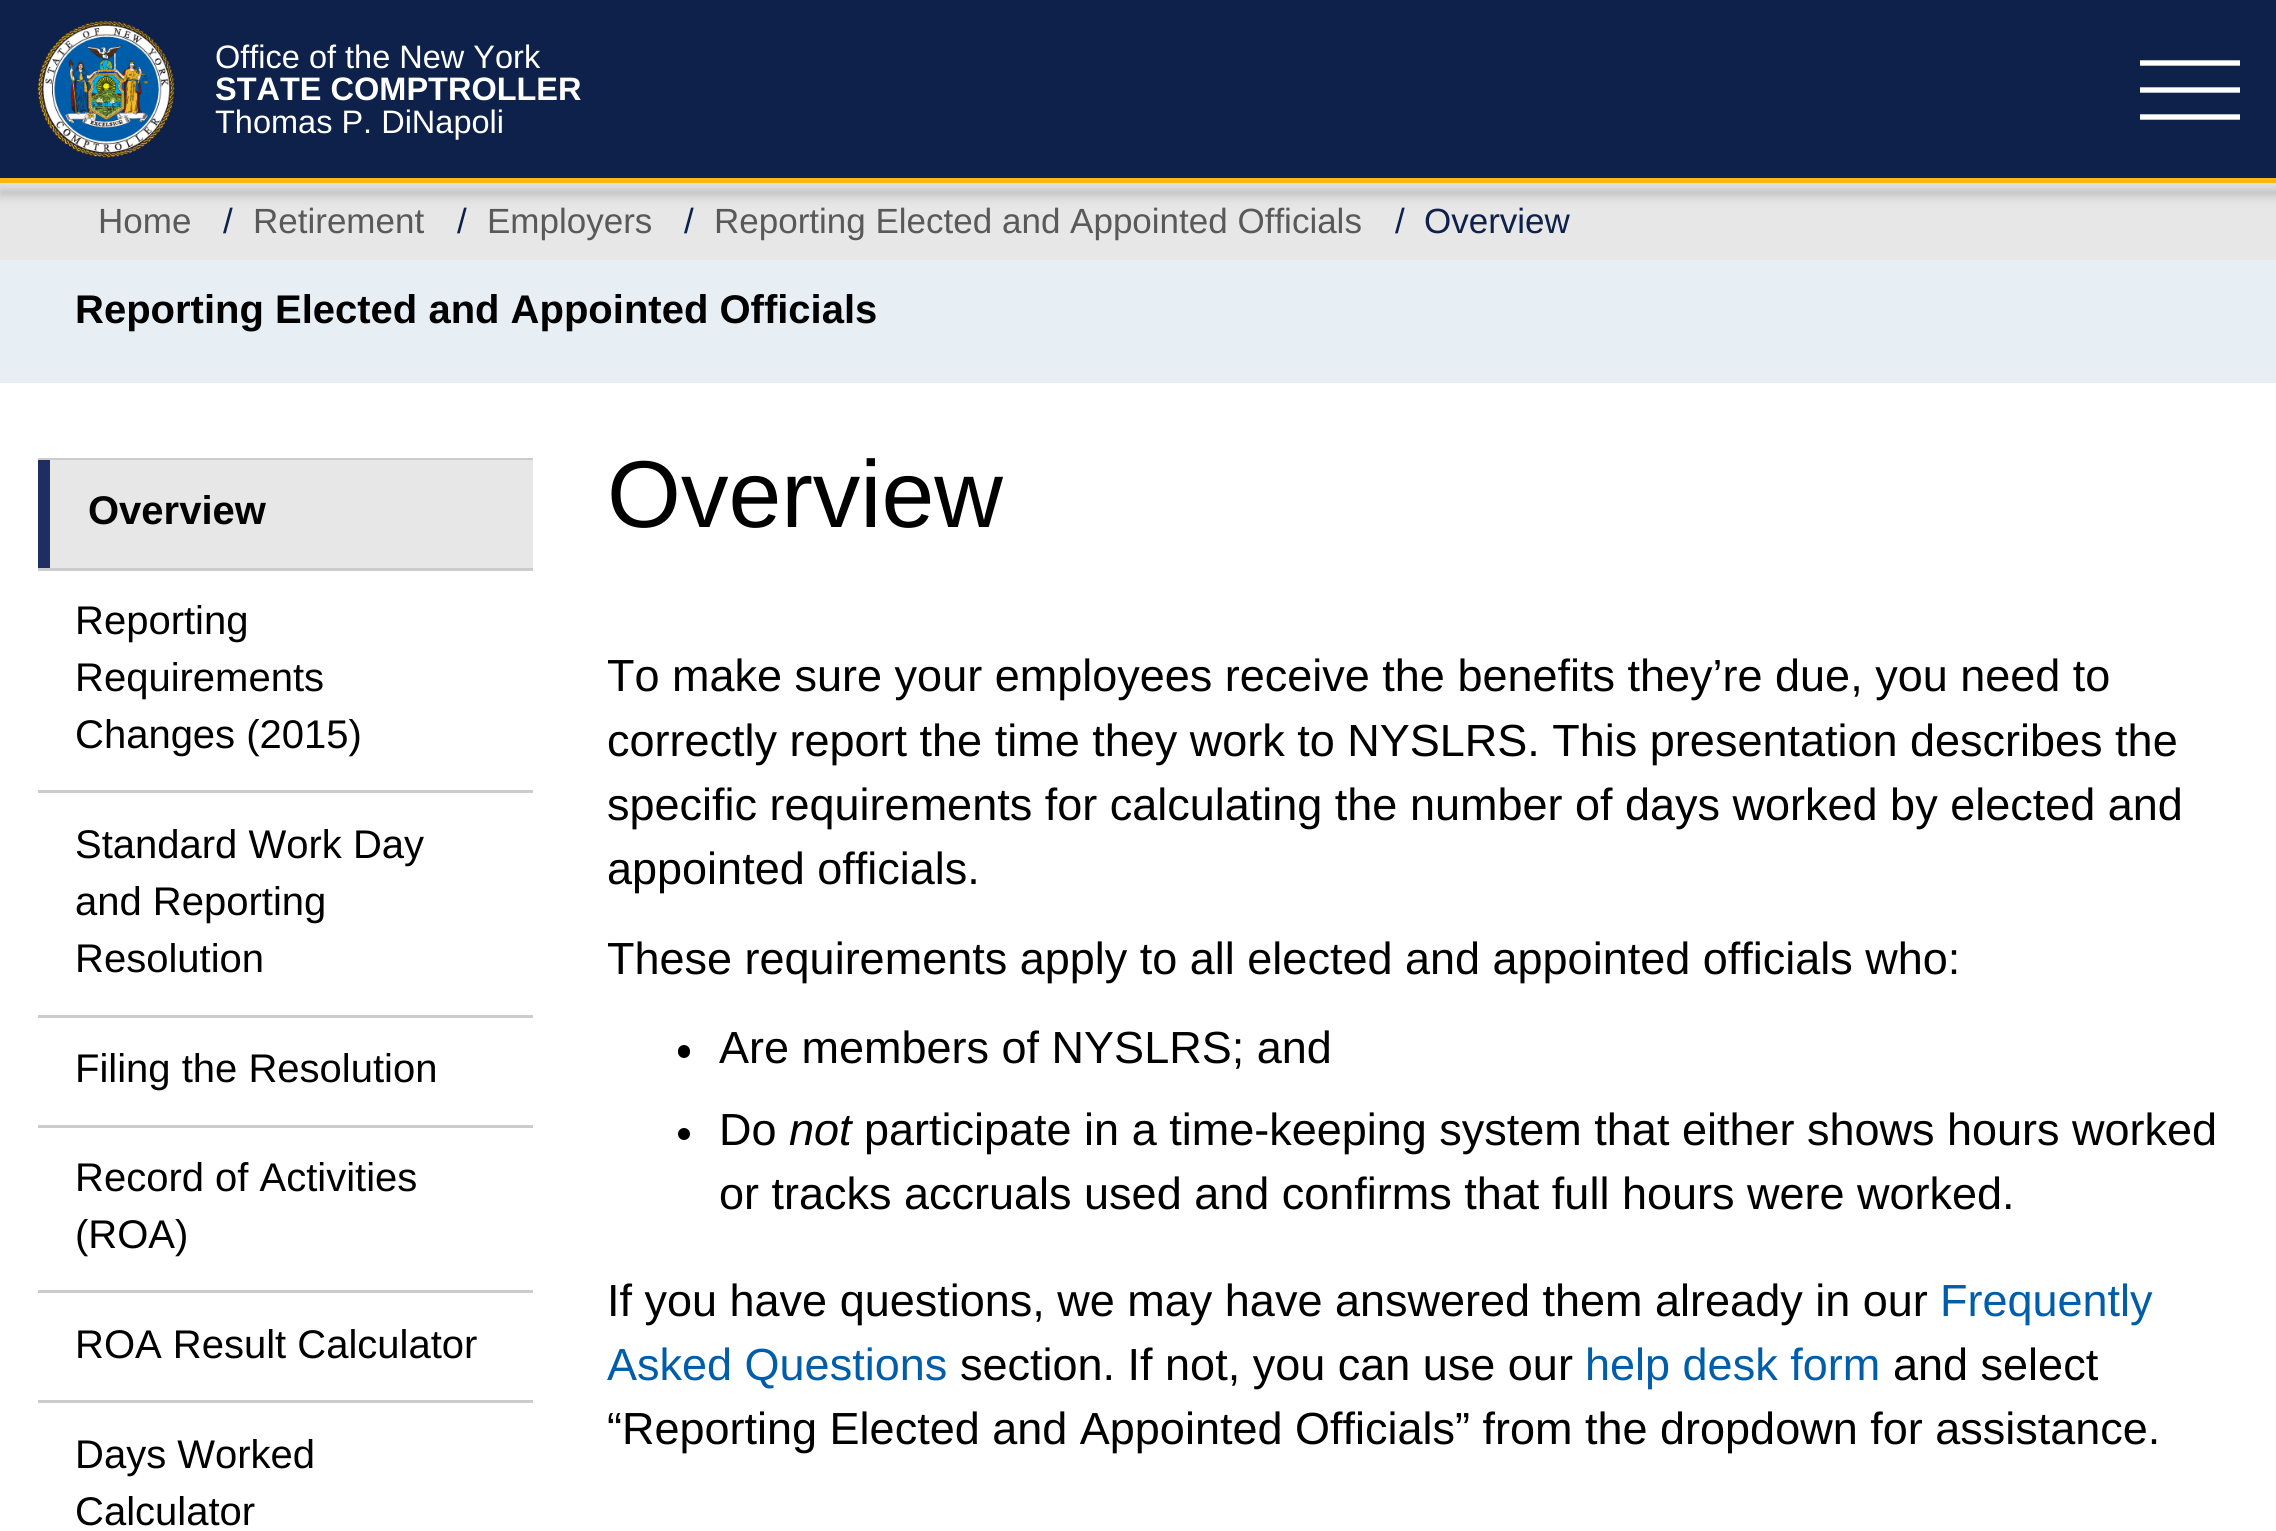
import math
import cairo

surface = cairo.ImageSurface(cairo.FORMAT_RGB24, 2276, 1531)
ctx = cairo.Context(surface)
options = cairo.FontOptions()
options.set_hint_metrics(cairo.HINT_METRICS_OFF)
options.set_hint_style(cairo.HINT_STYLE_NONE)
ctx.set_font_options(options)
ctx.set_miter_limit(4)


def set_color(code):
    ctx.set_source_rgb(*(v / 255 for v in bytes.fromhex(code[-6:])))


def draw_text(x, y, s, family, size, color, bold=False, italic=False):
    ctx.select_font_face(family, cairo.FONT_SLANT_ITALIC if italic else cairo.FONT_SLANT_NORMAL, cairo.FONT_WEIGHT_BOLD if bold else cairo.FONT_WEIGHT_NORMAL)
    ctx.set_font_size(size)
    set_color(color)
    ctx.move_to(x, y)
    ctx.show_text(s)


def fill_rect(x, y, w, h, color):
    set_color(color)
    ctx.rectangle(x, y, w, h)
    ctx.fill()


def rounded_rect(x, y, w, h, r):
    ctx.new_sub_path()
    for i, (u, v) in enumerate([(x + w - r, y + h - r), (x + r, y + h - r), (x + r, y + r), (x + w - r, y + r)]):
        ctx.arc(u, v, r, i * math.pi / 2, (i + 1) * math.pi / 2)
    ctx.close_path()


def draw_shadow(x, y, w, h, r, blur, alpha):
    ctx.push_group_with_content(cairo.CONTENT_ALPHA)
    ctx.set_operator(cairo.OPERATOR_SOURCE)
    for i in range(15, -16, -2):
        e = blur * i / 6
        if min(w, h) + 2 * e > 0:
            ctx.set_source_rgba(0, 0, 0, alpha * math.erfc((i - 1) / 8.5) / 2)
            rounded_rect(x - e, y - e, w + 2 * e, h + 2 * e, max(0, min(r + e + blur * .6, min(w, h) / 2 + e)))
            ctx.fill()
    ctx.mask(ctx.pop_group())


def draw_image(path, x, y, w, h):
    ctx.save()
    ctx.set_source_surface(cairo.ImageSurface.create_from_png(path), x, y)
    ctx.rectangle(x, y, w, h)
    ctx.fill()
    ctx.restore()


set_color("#ffffff")
ctx.paint()
fill_rect(0, 0, 2276, 178, "#0d214a")
draw_image("assets/img1.png", 37, 20, 138, 138)
draw_text(215, 68, "Office of the New York", "Liberation Sans", 32.5, "#ffffff")
draw_text(215, 100, "STATE COMPTROLLER", "Liberation Sans", 32.5, "#ffffff", bold=True)
draw_text(215, 133, "Thomas P. DiNapoli", "Liberation Sans", 32.5, "#ffffff")
ctx.save()
ctx.rectangle(2140, 58, 100, 65)
ctx.clip()
ctx.new_path()
ctx.move_to(2140, 90)
ctx.line_to(2245.5, 90)
ctx.move_to(2140, 117)
ctx.line_to(2245.5, 117)
ctx.move_to(2140, 63)
ctx.line_to(2245.5, 63)
ctx.set_line_width(5.4)
ctx.stroke()
ctx.restore()
fill_rect(0, 183, 2276, 77, "#e7e7e8")
set_color("#000000")
draw_shadow(0, 190, 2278, 5, 0, 6, 0.2)
fill_rect(0, 178, 2276, 5, "#fdb515")
draw_text(98, 233, "Home", "Liberation Sans", 35, "#595959")
draw_text(223, 233, "/", "Liberation Sans", 35, "#0d214a")
draw_text(253, 233, "Retirement", "Liberation Sans", 35, "#595959")
draw_text(457, 233, "/", "Liberation Sans", 35, "#0d214a")
draw_text(487, 233, "Employers", "Liberation Sans", 35, "#595959")
draw_text(684, 233, "/", "Liberation Sans", 35, "#0d214a")
draw_text(714, 233, "Reporting Elected and Appointed Officials", "Liberation Sans", 35, "#595959")
draw_text(1395, 233, "/", "Liberation Sans", 35, "#0d214a")
draw_text(1424, 233, "Overview", "Liberation Sans", 35, "#0d214a")
fill_rect(0, 260, 2276, 123, "#e7eff5")
draw_text(75, 323, "Reporting Elected and Appointed Officials", "Liberation Sans", 40, "#000000", bold=True)
fill_rect(38, 458, 495, 2, "#cccccc")
fill_rect(38, 568, 495, 3, "#cccccc")
fill_rect(50, 460, 483, 108, "#e7e7e8")
fill_rect(38, 460, 12, 108, "#1e2e60")
draw_text(88, 524, "Overview", "Liberation Sans", 40, "#000000", bold=True)
fill_rect(38, 790, 495, 3, "#cccccc")
draw_text(75, 634, "Reporting", "Liberation Sans", 40, "#000000")
draw_text(75, 691, "Requirements", "Liberation Sans", 40, "#000000")
draw_text(75, 748, "Changes (2015)", "Liberation Sans", 40, "#000000")
fill_rect(38, 1015, 495, 3, "#cccccc")
draw_text(75, 858, "Standard Work Day", "Liberation Sans", 40, "#000000")
draw_text(75, 915, "and Reporting", "Liberation Sans", 40, "#000000")
draw_text(75, 972, "Resolution", "Liberation Sans", 40, "#000000")
fill_rect(38, 1125, 495, 3, "#cccccc")
draw_text(75, 1082, "Filing the Resolution", "Liberation Sans", 40, "#000000")
fill_rect(38, 1290, 495, 3, "#cccccc")
draw_text(75, 1191, "Record of Activities", "Liberation Sans", 40, "#000000")
draw_text(75, 1248, "(ROA)", "Liberation Sans", 40, "#000000")
fill_rect(38, 1400, 495, 3, "#cccccc")
draw_text(75, 1358, "ROA Result Calculator", "Liberation Sans", 40, "#000000")
draw_text(75, 1468, "Days Worked", "Liberation Sans", 40, "#000000")
draw_text(75, 1525, "Calculator", "Liberation Sans", 40, "#000000")
draw_text(607, 527, "Overview", "Liberation Sans", 95, "#000000")
draw_text(607, 691, "To make sure your employees receive the benefits they’re due, you need to", "Liberation Sans", 45, "#000000")
draw_text(607, 756, "correctly report the time they work to NYSLRS. This presentation describes the", "Liberation Sans", 45, "#000000")
draw_text(607, 820, "specific requirements for calculating the number of days worked by elected and", "Liberation Sans", 45, "#000000")
draw_text(607, 884, "appointed officials.", "Liberation Sans", 45, "#000000")
draw_text(607, 974, "These requirements apply to all elected and appointed officials who:", "Liberation Sans", 45, "#000000")
rounded_rect(678, 1045, 12, 13, 6)
ctx.fill()
draw_text(719, 1063, "Are members of NYSLRS; and", "Liberation Sans", 45, "#000000")
ctx.new_path()
ctx.arc(684, 1134, 6, 0, 2 * math.pi)
ctx.fill()
draw_text(719, 1145, "Do", "Liberation Sans", 45, "#000000")
draw_text(789, 1145, "not", "Liberation Sans", 45, "#000000", italic=True)
draw_text(864, 1145, "participate in a time-keeping system that either shows hours worked", "Liberation Sans", 45, "#000000")
draw_text(719, 1209, "or tracks accruals used and confirms that full hours were worked.", "Liberation Sans", 45, "#000000")
draw_text(607, 1316, "If you have questions, we may have answered them already in our", "Liberation Sans", 45, "#000000")
draw_text(1940, 1316, "Frequently", "Liberation Sans", 45, "#005daa")
draw_text(607, 1380, "Asked Questions", "Liberation Sans", 45, "#005daa")
draw_text(960, 1380, "section. If not, you can use our", "Liberation Sans", 45, "#000000")
draw_text(1585, 1380, "help desk form", "Liberation Sans", 45, "#005daa")
draw_text(1893, 1380, "and select", "Liberation Sans", 45, "#000000")
draw_text(607, 1444, "“Reporting Elected and Appointed Officials” from the dropdown for assistance.", "Liberation Sans", 45, "#000000")
surface.write_to_png("output.png")
